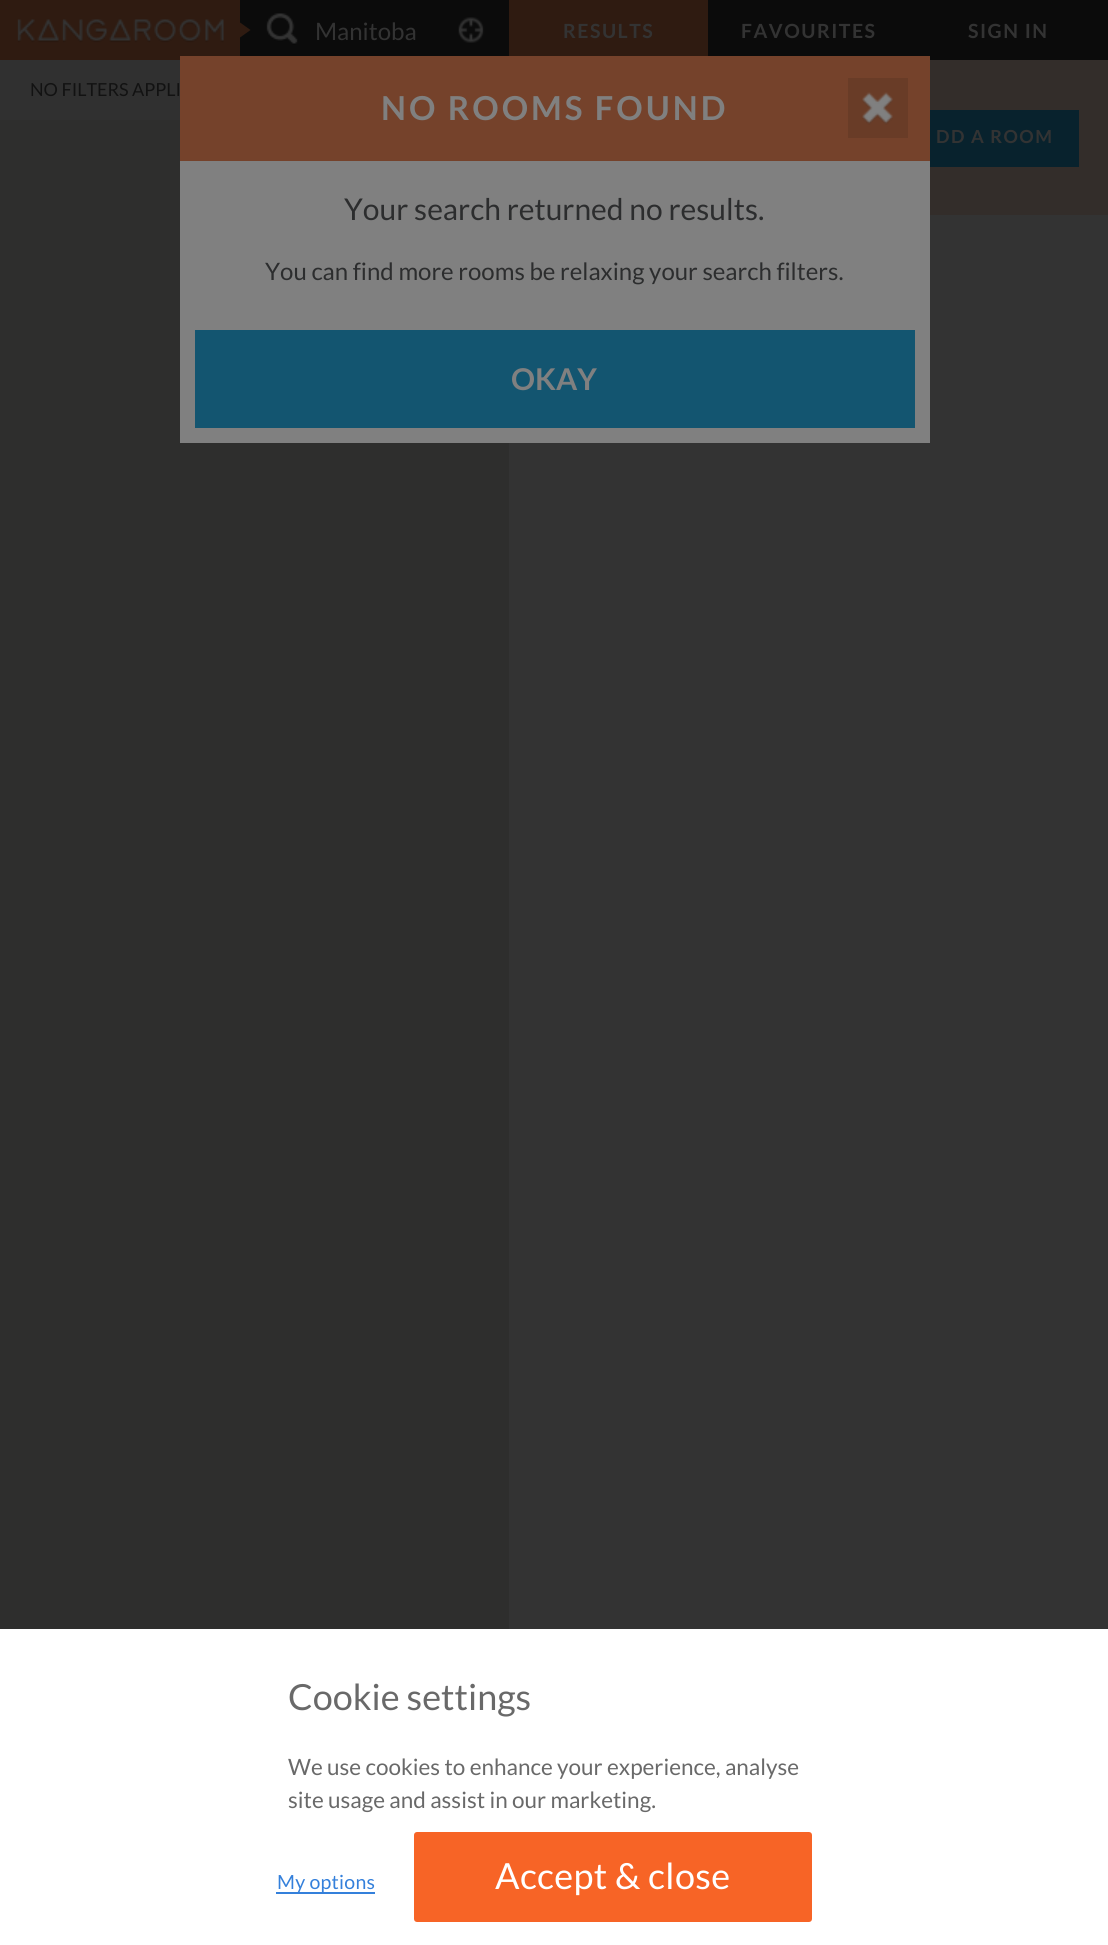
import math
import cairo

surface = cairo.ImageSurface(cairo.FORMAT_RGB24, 1108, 1945)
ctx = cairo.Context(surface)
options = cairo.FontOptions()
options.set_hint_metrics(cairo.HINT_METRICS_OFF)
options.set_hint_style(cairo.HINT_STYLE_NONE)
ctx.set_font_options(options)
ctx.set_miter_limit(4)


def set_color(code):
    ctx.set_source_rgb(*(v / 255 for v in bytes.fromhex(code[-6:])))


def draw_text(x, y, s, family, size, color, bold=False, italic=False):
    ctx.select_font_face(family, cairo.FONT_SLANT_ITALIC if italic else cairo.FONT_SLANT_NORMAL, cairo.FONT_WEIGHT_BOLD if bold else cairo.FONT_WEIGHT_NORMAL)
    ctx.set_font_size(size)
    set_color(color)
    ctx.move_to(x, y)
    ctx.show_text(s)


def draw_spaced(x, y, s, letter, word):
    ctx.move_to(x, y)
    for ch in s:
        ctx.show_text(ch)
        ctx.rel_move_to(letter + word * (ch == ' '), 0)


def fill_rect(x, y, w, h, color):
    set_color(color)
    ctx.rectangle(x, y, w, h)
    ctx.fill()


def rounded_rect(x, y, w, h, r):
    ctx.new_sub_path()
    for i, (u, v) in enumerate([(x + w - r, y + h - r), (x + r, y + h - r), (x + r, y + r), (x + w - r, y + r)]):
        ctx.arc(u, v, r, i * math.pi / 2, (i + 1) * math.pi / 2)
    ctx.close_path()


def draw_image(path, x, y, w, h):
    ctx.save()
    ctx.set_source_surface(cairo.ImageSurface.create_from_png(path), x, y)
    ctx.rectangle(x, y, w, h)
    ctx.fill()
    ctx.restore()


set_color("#2e2e2d")
ctx.paint()
fill_rect(240, 0, 868, 60, "#0b0b0b")
fill_rect(0, 0, 240, 60, "#2f1b11")
draw_image("assets/img1.png", 17, 19, 207, 24)
ctx.new_path()
ctx.move_to(240, 37.5)
ctx.line_to(240, 22.5)
ctx.line_to(250.5, 30)
ctx.close_path()
ctx.fill()
draw_image("assets/img2.png", 266, 13, 32, 32)
draw_text(315, 40, "Manitoba", "Lato", 24, "#333333")
draw_image("assets/img3.png", 458, 17, 27, 26)
fill_rect(509, 0, 199, 56, "#2f1b11")
ctx.select_font_face("Lato", cairo.FONT_SLANT_NORMAL, cairo.FONT_WEIGHT_BOLD)
ctx.set_font_size(19.5)
set_color("#333333")
draw_spaced(563, 38, "RESULTS", 1.5, 0)
draw_spaced(741, 38, "FAVOURITES", 1.5, 0)
draw_spaced(968, 38, "SIGN IN", 1.5, 0)
fill_rect(0, 60, 180, 60, "#303030")
draw_text(30, 96, "NO FILTERS APPLI", "Lato", 18, "#121212")
fill_rect(509, 215, 599, 1414, "#333333")
fill_rect(930, 60, 178, 155, "#332d2a")
fill_rect(930, 110, 149, 57, "#08222d")
ctx.select_font_face("Lato", cairo.FONT_SLANT_NORMAL, cairo.FONT_WEIGHT_BOLD)
set_color("#333333")
draw_spaced(936, 143, "DD A ROOM", 1.5, 0)
fill_rect(180, 161, 750, 282, "#808080")
fill_rect(180, 56, 750, 105, "#75422b")
ctx.set_font_size(33)
set_color("#808080")
draw_spaced(381, 120, "NO ROOMS FOUND", 3, 0)
fill_rect(848, 78, 60, 60, "#693c27")
draw_image("assets/img4.png", 862, 92, 31, 33)
draw_text(344, 220, "Your search returned no results.", "Lato", 30, "#2c2d2e")
draw_text(265, 280, "You can find more rooms be relaxing your search filters.", "Lato", 24, "#2c2d2e")
fill_rect(195, 330, 720, 98, "#135570")
draw_text(511, 390, "OKAY", "Lato", 30, "#808080", bold=True)
fill_rect(0, 1629, 1108, 316, "#ffffff")
draw_text(288, 1710, "Cookie settings", "Lato", 36, "#696969")
draw_text(288, 1775, "We use cookies to enhance your experience, analyse", "Lato", 22.5, "#696969")
draw_text(288, 1808, "site usage and assist in our marketing.", "Lato", 22.5, "#696969")
fill_rect(276, 1892, 99, 2, "#3480db")
ctx.set_font_size(19.5)
draw_spaced(277, 1889, "My options", 0.25, 0)
set_color("#f76426")
rounded_rect(415, 1833, 396, 88, 2)
ctx.fill_preserve()
ctx.stroke()
ctx.set_font_size(36)
set_color("#ffffff")
draw_spaced(495, 1889, "Accept & close", 0.4, 0)
surface.write_to_png("output.png")
